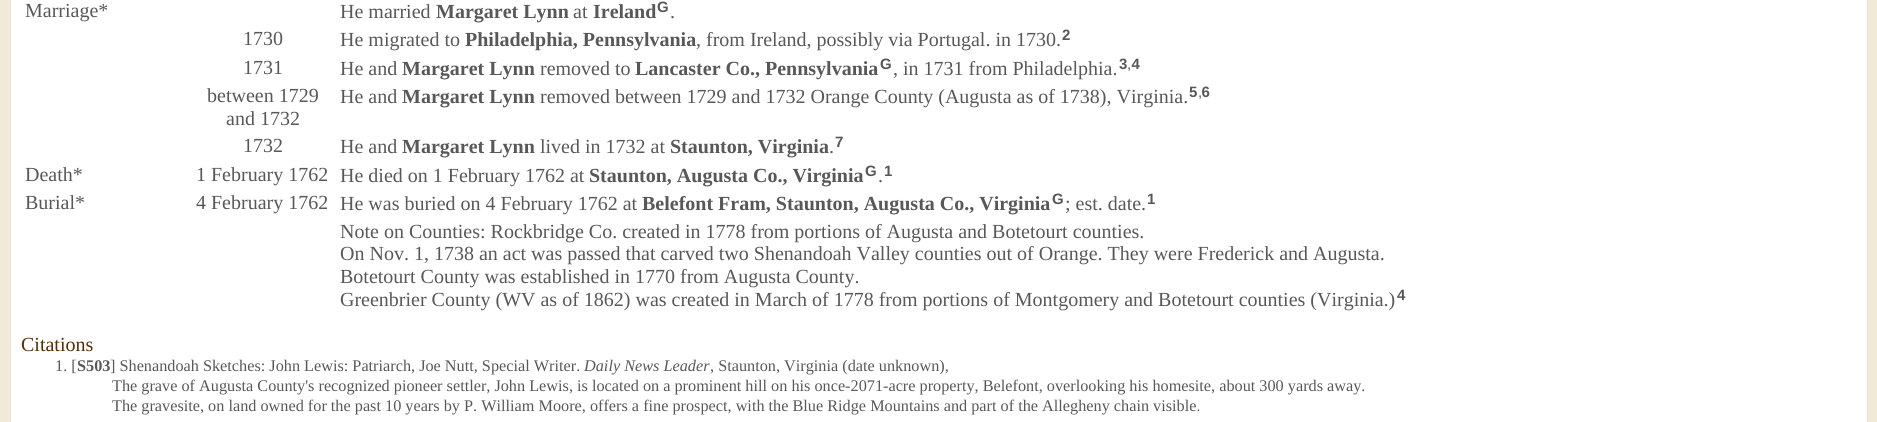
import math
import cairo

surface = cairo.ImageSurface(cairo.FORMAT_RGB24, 1877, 422)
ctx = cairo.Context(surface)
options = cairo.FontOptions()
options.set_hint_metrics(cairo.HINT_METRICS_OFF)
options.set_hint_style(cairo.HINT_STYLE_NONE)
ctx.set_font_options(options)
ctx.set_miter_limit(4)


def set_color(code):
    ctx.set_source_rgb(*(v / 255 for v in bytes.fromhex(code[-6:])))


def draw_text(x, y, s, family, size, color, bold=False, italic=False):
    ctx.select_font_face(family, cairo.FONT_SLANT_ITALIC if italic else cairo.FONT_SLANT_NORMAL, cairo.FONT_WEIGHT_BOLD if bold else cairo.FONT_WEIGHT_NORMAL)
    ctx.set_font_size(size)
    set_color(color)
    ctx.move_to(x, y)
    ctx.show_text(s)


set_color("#f0ead6")
ctx.paint()
set_color("#ffffff")
ctx.rectangle(10.5, -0.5, 1857, 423)
ctx.fill_preserve()
set_color("#e1e1e1")
ctx.set_line_width(1)
ctx.stroke()
draw_text(25, 17, "Marriage*", "Liberation Serif", 20, "#585858")
draw_text(340, 18, "He married", "Liberation Serif", 20, "#585858")
draw_text(436, 18, "Margaret Lynn", "Liberation Serif", 20, "#585858", bold=True)
draw_text(573, 18, "at", "Liberation Serif", 20, "#585858")
draw_text(593, 18, "Ireland", "Liberation Serif", 20, "#585858", bold=True)
draw_text(657, 12, "G", "Liberation Sans", 15, "#585858", bold=True)
draw_text(670, 18, ".", "Liberation Serif", 20, "#585858")
draw_text(243, 45, "1730", "Liberation Serif", 20, "#585858")
draw_text(340, 46, "He migrated to", "Liberation Serif", 20, "#585858")
draw_text(465, 46, "Philadelphia, Pennsylvania", "Liberation Serif", 20, "#585858", bold=True)
draw_text(696, 46, ", from Ireland, possibly via Portugal. in 1730.", "Liberation Serif", 20, "#585858")
draw_text(1062, 40, "2", "Liberation Sans", 15, "#585858", bold=True)
draw_text(243, 74, "1731", "Liberation Serif", 20, "#585858")
draw_text(340, 75, "He and", "Liberation Serif", 20, "#585858")
draw_text(402, 75, "Margaret Lynn", "Liberation Serif", 20, "#585858", bold=True)
draw_text(540, 75, "removed to", "Liberation Serif", 20, "#585858")
draw_text(635, 75, "Lancaster Co., Pennsylvania", "Liberation Serif", 20, "#585858", bold=True)
draw_text(880, 69, "G", "Liberation Sans", 15, "#585858", bold=True)
draw_text(893, 75, ", in 1731 from Philadelphia.", "Liberation Serif", 20, "#585858")
draw_text(1119, 69, "3 4", "Liberation Sans", 15, "#585858", bold=True)
draw_text(1127, 69, ",", "Liberation Sans", 15, "#585858")
draw_text(207, 102, "between 1729", "Liberation Serif", 20, "#585858")
draw_text(226, 125, "and 1732", "Liberation Serif", 20, "#585858")
draw_text(340, 103, "He and", "Liberation Serif", 20, "#585858")
draw_text(402, 103, "Margaret Lynn", "Liberation Serif", 20, "#585858", bold=True)
draw_text(540, 103, "removed between 1729 and 1732 Orange County (Augusta as of 1738), Virginia.", "Liberation Serif", 20, "#585858")
draw_text(1189, 97, "5 6", "Liberation Sans", 15, "#585858", bold=True)
draw_text(1198, 97, ",", "Liberation Sans", 15, "#585858")
draw_text(243, 152, "1732", "Liberation Serif", 20, "#585858")
draw_text(340, 153, "He and", "Liberation Serif", 20, "#585858")
draw_text(402, 153, "Margaret Lynn", "Liberation Serif", 20, "#585858", bold=True)
draw_text(540, 153, "lived in 1732 at", "Liberation Serif", 20, "#585858")
draw_text(670, 153, "Staunton, Virginia", "Liberation Serif", 20, "#585858", bold=True)
draw_text(829, 153, ".", "Liberation Serif", 20, "#585858")
draw_text(835, 147, "7", "Liberation Sans", 15, "#585858", bold=True)
draw_text(25, 181, "Death*", "Liberation Serif", 20, "#585858")
draw_text(196, 181, "1 February 1762", "Liberation Serif", 20, "#585858")
draw_text(340, 182, "He died on 1 February 1762 at", "Liberation Serif", 20, "#585858")
draw_text(589, 182, "Staunton, Augusta Co., Virginia", "Liberation Serif", 20, "#585858", bold=True)
draw_text(865, 176, "G", "Liberation Sans", 15, "#585858", bold=True)
draw_text(878, 182, ".", "Liberation Serif", 20, "#585858")
draw_text(884, 176, "1", "Liberation Sans", 15, "#585858", bold=True)
draw_text(25, 209, "Burial*", "Liberation Serif", 20, "#585858")
draw_text(196, 209, "4 February 1762", "Liberation Serif", 20, "#585858")
draw_text(340, 210, "He was buried on 4 February 1762 at", "Liberation Serif", 20, "#585858")
draw_text(642, 210, "Belefont Fram, Staunton, Augusta Co., Virginia", "Liberation Serif", 20, "#585858", bold=True)
draw_text(1052, 204, "G", "Liberation Sans", 15, "#585858", bold=True)
draw_text(1065, 210, "; est. date.", "Liberation Serif", 20, "#585858")
draw_text(1147, 204, "1", "Liberation Sans", 15, "#585858", bold=True)
draw_text(340, 238, "Note on Counties: Rockbridge Co. created in 1778 from portions of Augusta and Botetourt counties.", "Liberation Serif", 20, "#585858")
draw_text(340, 260, "On Nov. 1, 1738 an act was passed that carved two Shenandoah Valley counties out of Orange. They were Frederick and Augusta.", "Liberation Serif", 20, "#585858")
draw_text(340, 283, "Botetourt County was established in 1770 from Augusta County.", "Liberation Serif", 20, "#585858")
draw_text(340, 306, "Greenbrier County (WV as of 1862) was created in March of 1778 from portions of Montgomery and Botetourt counties (Virginia.)", "Liberation Serif", 20, "#585858")
draw_text(1397, 300, "4", "Liberation Sans", 15, "#585858", bold=True)
draw_text(21, 351, "Citations", "Liberation Serif", 20, "#562f00")
draw_text(55, 371, "1. [", "Liberation Serif", 16.25, "#585858")
draw_text(77, 371, "S503", "Liberation Serif", 16.25, "#585858", bold=True)
draw_text(110, 371, "] Shenandoah Sketches: John Lewis: Patriarch, Joe Nutt, Special Writer.", "Liberation Serif", 16.25, "#585858")
draw_text(584, 371, "Daily News Leader", "Liberation Serif", 16.25, "#585858", italic=True)
draw_text(710, 371, ", Staunton, Virginia (date unknown),", "Liberation Serif", 16.25, "#585858")
draw_text(112, 391, "The grave of Augusta County's recognized pioneer settler, John Lewis, is located on a prominent hill on his once-2071-acre property, Belefont, overlooking his homesite, about 300 yards away.", "Liberation Serif", 16.25, "#585858")
draw_text(112, 411, "The gravesite, on land owned for the past 10 years by P. William Moore, offers a fine prospect, with the Blue Ridge Mountains and part of the Allegheny chain visible.", "Liberation Serif", 16.25, "#585858")
surface.write_to_png("output.png")
